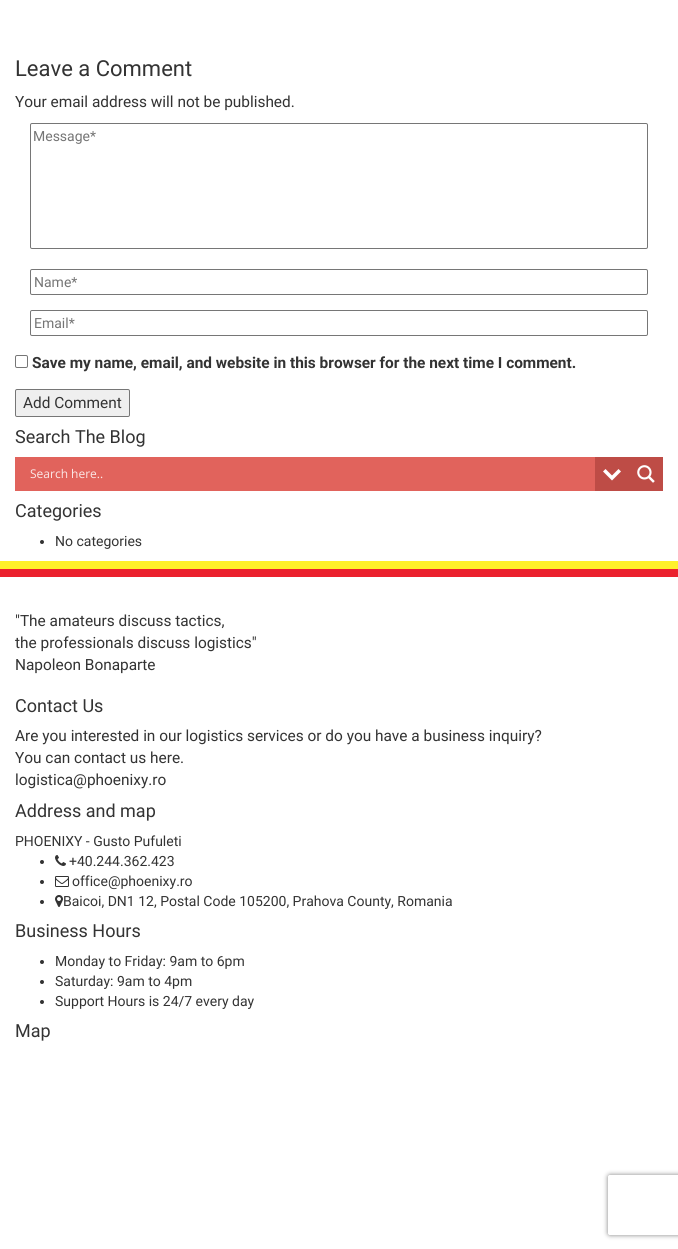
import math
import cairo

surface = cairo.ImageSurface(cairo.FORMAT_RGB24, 678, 1249)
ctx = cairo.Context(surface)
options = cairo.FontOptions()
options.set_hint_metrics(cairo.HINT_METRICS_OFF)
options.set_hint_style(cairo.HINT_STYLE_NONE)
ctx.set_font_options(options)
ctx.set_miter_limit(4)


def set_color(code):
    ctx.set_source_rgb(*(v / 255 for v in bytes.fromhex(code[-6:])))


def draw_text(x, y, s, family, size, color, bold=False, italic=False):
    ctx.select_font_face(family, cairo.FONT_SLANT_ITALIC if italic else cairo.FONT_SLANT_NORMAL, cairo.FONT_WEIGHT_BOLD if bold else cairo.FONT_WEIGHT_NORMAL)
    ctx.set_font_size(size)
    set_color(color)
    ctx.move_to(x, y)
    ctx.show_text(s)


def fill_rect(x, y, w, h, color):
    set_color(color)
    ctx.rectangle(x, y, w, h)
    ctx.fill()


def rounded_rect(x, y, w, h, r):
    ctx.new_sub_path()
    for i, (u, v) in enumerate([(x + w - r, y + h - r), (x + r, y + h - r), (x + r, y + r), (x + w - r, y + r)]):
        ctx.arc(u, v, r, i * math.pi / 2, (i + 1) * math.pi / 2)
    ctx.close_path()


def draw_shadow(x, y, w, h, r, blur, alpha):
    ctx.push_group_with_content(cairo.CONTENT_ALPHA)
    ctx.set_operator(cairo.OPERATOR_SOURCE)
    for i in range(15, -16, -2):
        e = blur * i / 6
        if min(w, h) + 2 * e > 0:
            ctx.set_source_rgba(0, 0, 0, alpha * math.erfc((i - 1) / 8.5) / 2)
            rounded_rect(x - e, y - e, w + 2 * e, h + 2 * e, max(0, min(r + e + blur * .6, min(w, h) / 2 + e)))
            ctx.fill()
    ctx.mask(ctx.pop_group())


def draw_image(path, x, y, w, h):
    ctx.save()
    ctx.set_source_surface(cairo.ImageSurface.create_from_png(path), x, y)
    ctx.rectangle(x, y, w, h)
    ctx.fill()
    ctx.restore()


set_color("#ffffff")
ctx.paint()
fill_rect(0, 561, 678, 8, "#fff02a")
draw_text(15, 76, "Leave a Comment", "Roboto", 22, "#333333")
draw_text(15, 107, "Your email address will not be published.", "Roboto", 15.4, "#333333")
rounded_rect(30.5, 123.5, 617, 125, 1.5)
set_color("#767676")
ctx.set_line_width(1)
ctx.stroke()
draw_text(33, 141, "Message*", "Roboto", 14, "#757575")
rounded_rect(30.5, 269.5, 617, 25, 1.5)
set_color("#767676")
ctx.stroke()
draw_text(34, 287, "Name*", "Roboto", 14, "#757575")
rounded_rect(30.5, 310.5, 617, 25, 1.5)
set_color("#767676")
ctx.stroke()
draw_text(34, 328, "Email*", "Roboto", 14, "#757575")
rounded_rect(15.5, 355.5, 12, 12, 1.5)
set_color("#767676")
ctx.stroke()
draw_text(32, 368, "Save my name, email, and website in this browser for the next time I comment.", "Roboto", 15.4, "#333333", bold=True)
set_color("#efefef")
rounded_rect(15.5, 389.5, 114, 27, 1.5)
ctx.fill_preserve()
set_color("#767676")
ctx.stroke()
draw_text(23, 408, "Add Comment", "Roboto", 15.4, "#333333")
draw_text(15, 443, "Search The Blog", "Roboto", 18, "#333333")
fill_rect(15, 457, 580, 34, "#e1635c")
fill_rect(595, 457, 68, 34, "#be4c46")
set_color("#ffffff")
ctx.new_path()
ctx.move_to(618.5, 469)
ctx.line_to(621, 471.5)
ctx.line_to(612, 480.5)
ctx.line_to(603, 471.5)
ctx.line_to(605.5, 469)
ctx.line_to(612, 475.5)
ctx.close_path()
ctx.fill()
draw_text(30, 478, "Search here..", "Open Sans", 12, "#fbe8e7")
draw_image("assets/img1.png", 637, 465, 18, 18)
draw_text(15, 517, "Categories", "Roboto", 18, "#333333")
ctx.new_path()
ctx.arc(42, 542, 2, 0, 2 * math.pi)
ctx.fill()
draw_text(55, 546, "No categories", "Roboto", 14, "#333333")
fill_rect(0, 569, 678, 8, "#eb212e")
draw_text(15, 626, "\"The amateurs discuss tactics,", "Roboto", 15.4, "#333333")
draw_text(15, 648, "the professionals discuss logistics\"", "Roboto", 15.4, "#333333")
draw_text(15, 670, "Napoleon Bonaparte", "Roboto", 15.4, "#333333")
draw_text(15, 712, "Contact Us", "Roboto", 18, "#333333")
draw_text(15, 741, "Are you interested in our logistics services or do you have a business inquiry?", "Roboto", 15.4, "#333333")
draw_text(15, 763, "You can contact us here.", "Roboto", 15.4, "#333333")
draw_text(15, 785, "logistica@phoenixy.ro", "Roboto", 15.4, "#333333")
draw_text(15, 817, "Address and map", "Roboto", 18, "#333333")
draw_text(15, 846, "PHOENIXY - Gusto Pufuleti", "Roboto", 14, "#333333")
ctx.new_path()
ctx.arc(42, 862, 2, 0, 2 * math.pi)
ctx.fill()
draw_image("assets/img2.png", 55, 855, 11, 11)
draw_text(69, 866, "+40.244.362.423", "Roboto", 14, "#333333")
ctx.new_path()
ctx.arc(42, 882, 2, 0, 2 * math.pi)
ctx.fill()
draw_image("assets/img3.png", 55, 876, 14, 11)
draw_text(72, 886, "office@phoenixy.ro", "Roboto", 14, "#333333")
ctx.new_path()
ctx.arc(42, 902, 2, 0, 2 * math.pi)
ctx.fill()
draw_image("assets/img4.png", 55, 895, 8, 12)
draw_text(63, 906, "Baicoi, DN1 12, Postal Code 105200, Prahova County, Romania", "Roboto", 14, "#333333")
draw_text(15, 937, "Business Hours", "Roboto", 18, "#333333")
ctx.new_path()
ctx.arc(42, 962, 2, 0, 2 * math.pi)
ctx.fill()
draw_text(55, 966, "Monday to Friday: 9am to 6pm", "Roboto", 14, "#333333")
ctx.new_path()
ctx.arc(42, 982, 2, 0, 2 * math.pi)
ctx.fill()
draw_text(55, 986, "Saturday: 9am to 4pm", "Roboto", 14, "#333333")
ctx.new_path()
ctx.arc(42, 1002, 2, 0, 2 * math.pi)
ctx.fill()
draw_text(55, 1006, "Support Hours is 24/7 every day", "Roboto", 14, "#333333")
draw_text(15, 1037, "Map", "Roboto", 18, "#333333")
ctx.save()
ctx.set_fill_rule(cairo.FILL_RULE_EVEN_ODD)
ctx.new_path()
ctx.move_to(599, 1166)
ctx.line_to(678, 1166)
ctx.line_to(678, 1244)
ctx.line_to(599, 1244)
ctx.close_path()
ctx.move_to(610, 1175)
ctx.line_to(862, 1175)
ctx.curve_to(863, 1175, 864, 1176, 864, 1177)
ctx.line_to(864, 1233)
ctx.curve_to(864, 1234, 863, 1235, 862, 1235)
ctx.line_to(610, 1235)
ctx.curve_to(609, 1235, 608, 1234, 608, 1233)
ctx.line_to(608, 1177)
ctx.curve_to(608, 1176, 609, 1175, 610, 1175)
ctx.close_path()
ctx.clip()
set_color("#808080")
draw_shadow(608, 1175, 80, 60, 2, 2.5, 1)
ctx.restore()
surface.write_to_png("output.png")
